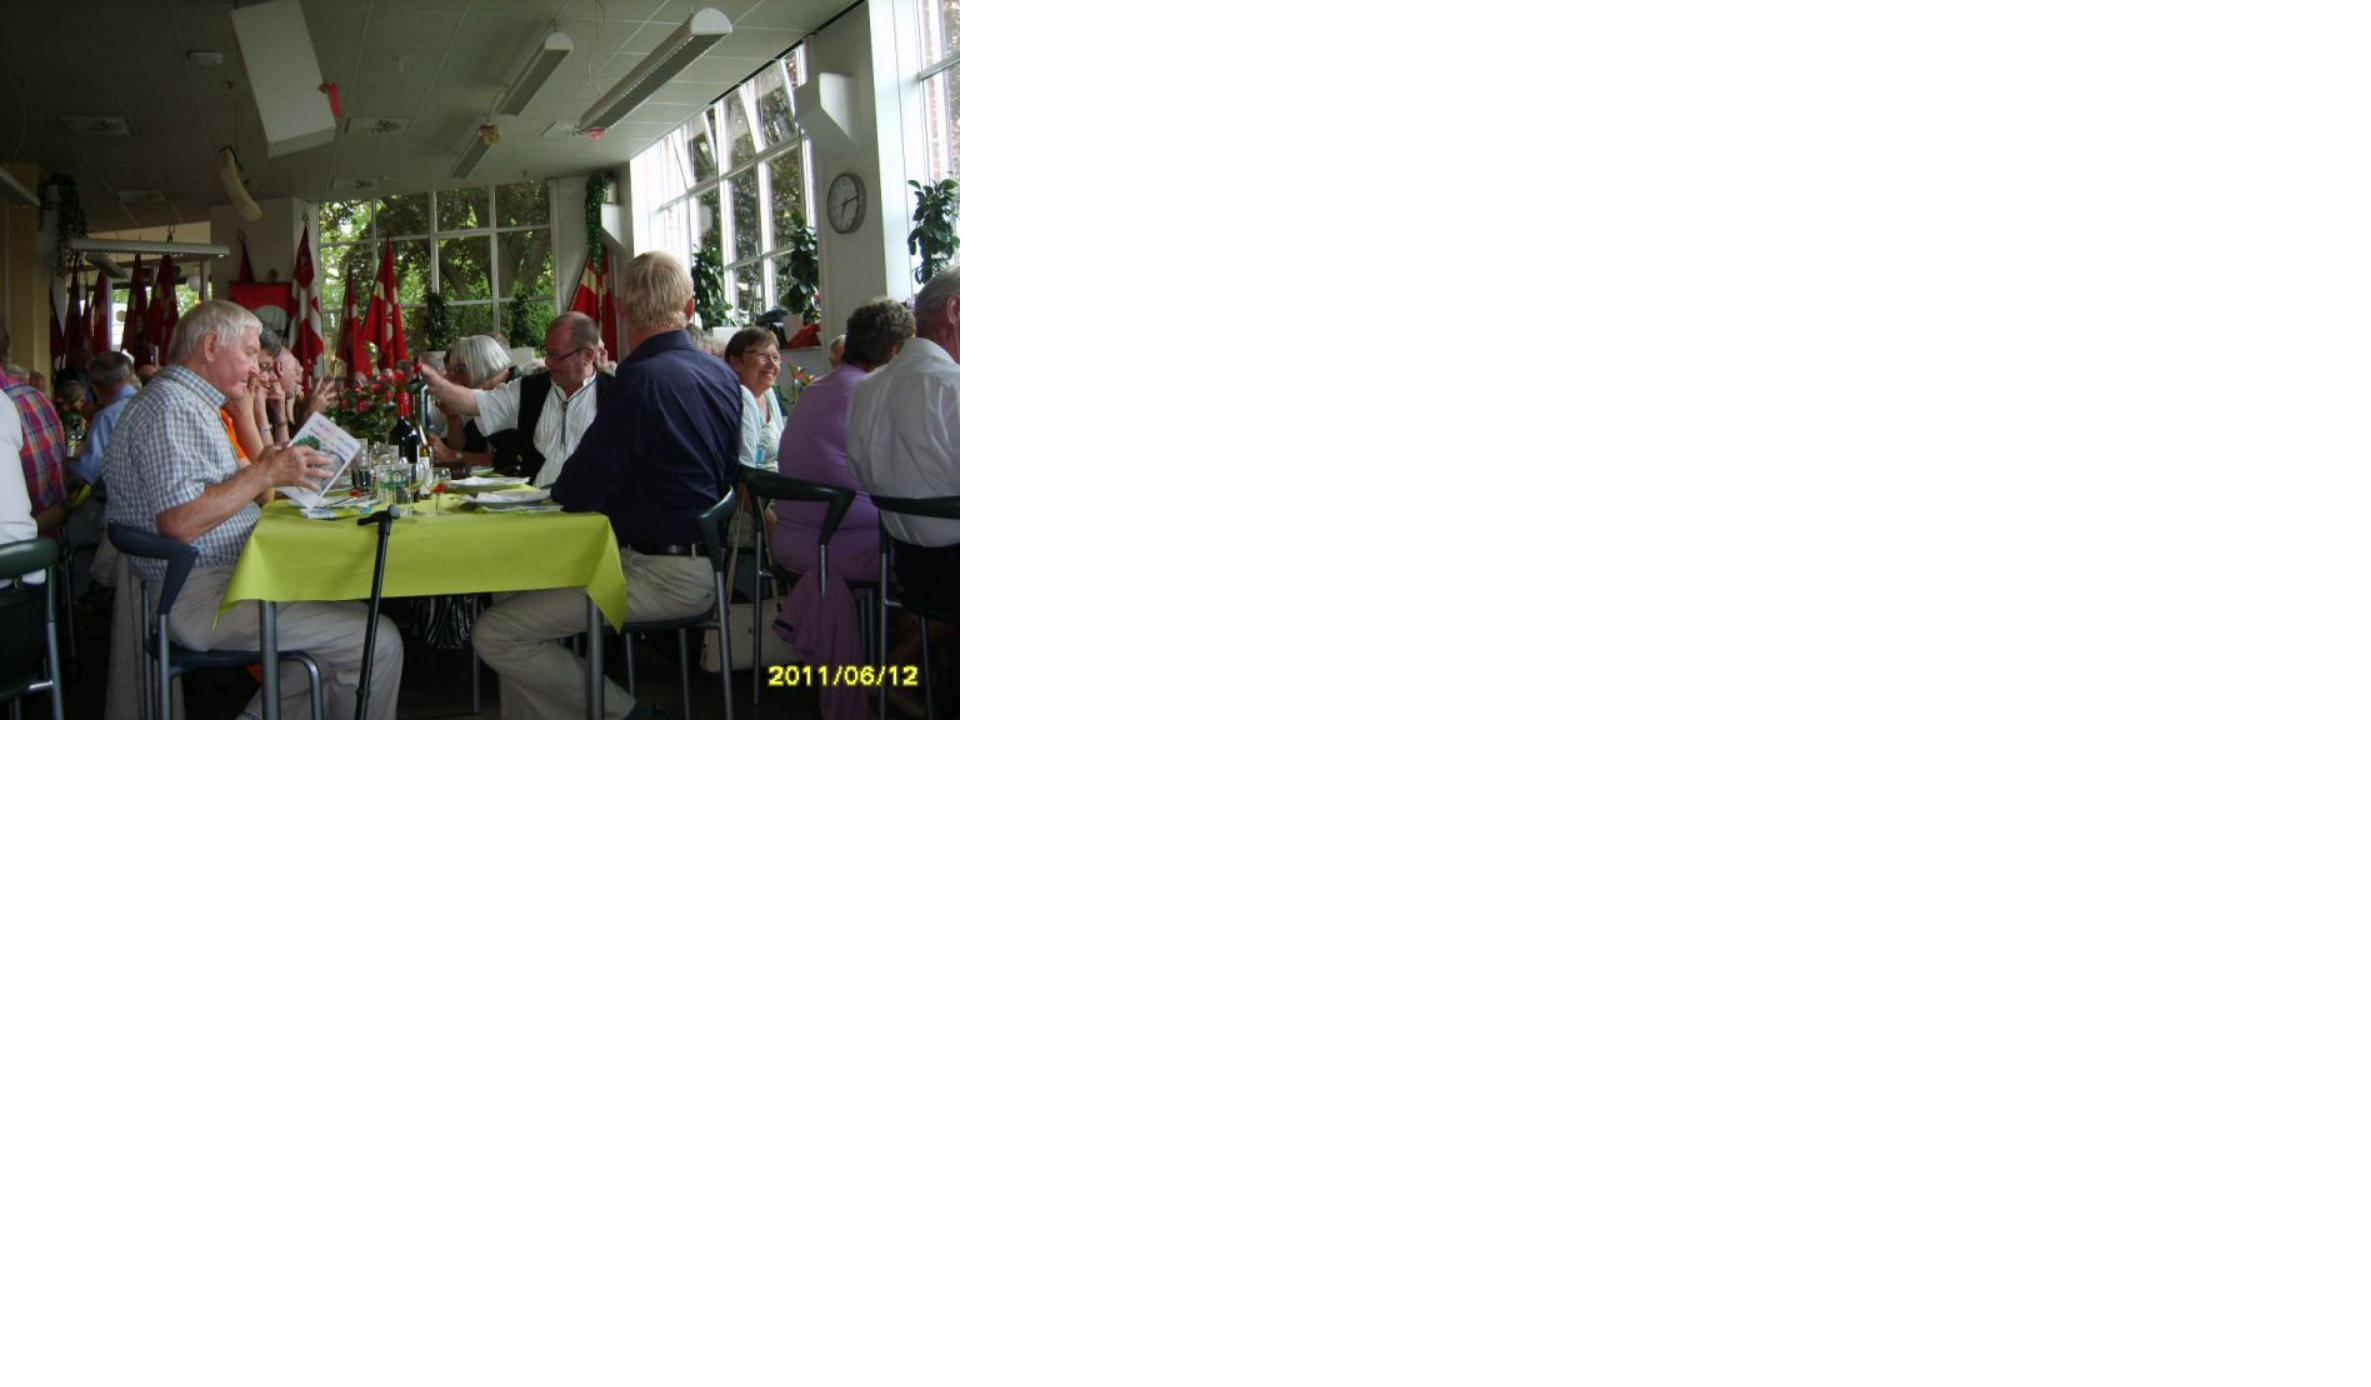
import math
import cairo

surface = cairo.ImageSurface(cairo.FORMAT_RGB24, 2371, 1387)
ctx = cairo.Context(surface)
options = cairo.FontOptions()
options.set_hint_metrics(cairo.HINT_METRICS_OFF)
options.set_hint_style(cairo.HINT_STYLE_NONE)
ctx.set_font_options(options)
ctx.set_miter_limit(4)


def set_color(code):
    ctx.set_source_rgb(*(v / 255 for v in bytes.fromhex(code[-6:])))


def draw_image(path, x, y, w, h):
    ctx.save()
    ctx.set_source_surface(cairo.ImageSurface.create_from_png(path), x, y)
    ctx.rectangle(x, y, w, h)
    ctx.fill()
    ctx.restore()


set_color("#ffffff")
ctx.paint()
draw_image("assets/img1.png", 0, 0, 960, 720)
surface.write_to_png("output.png")
